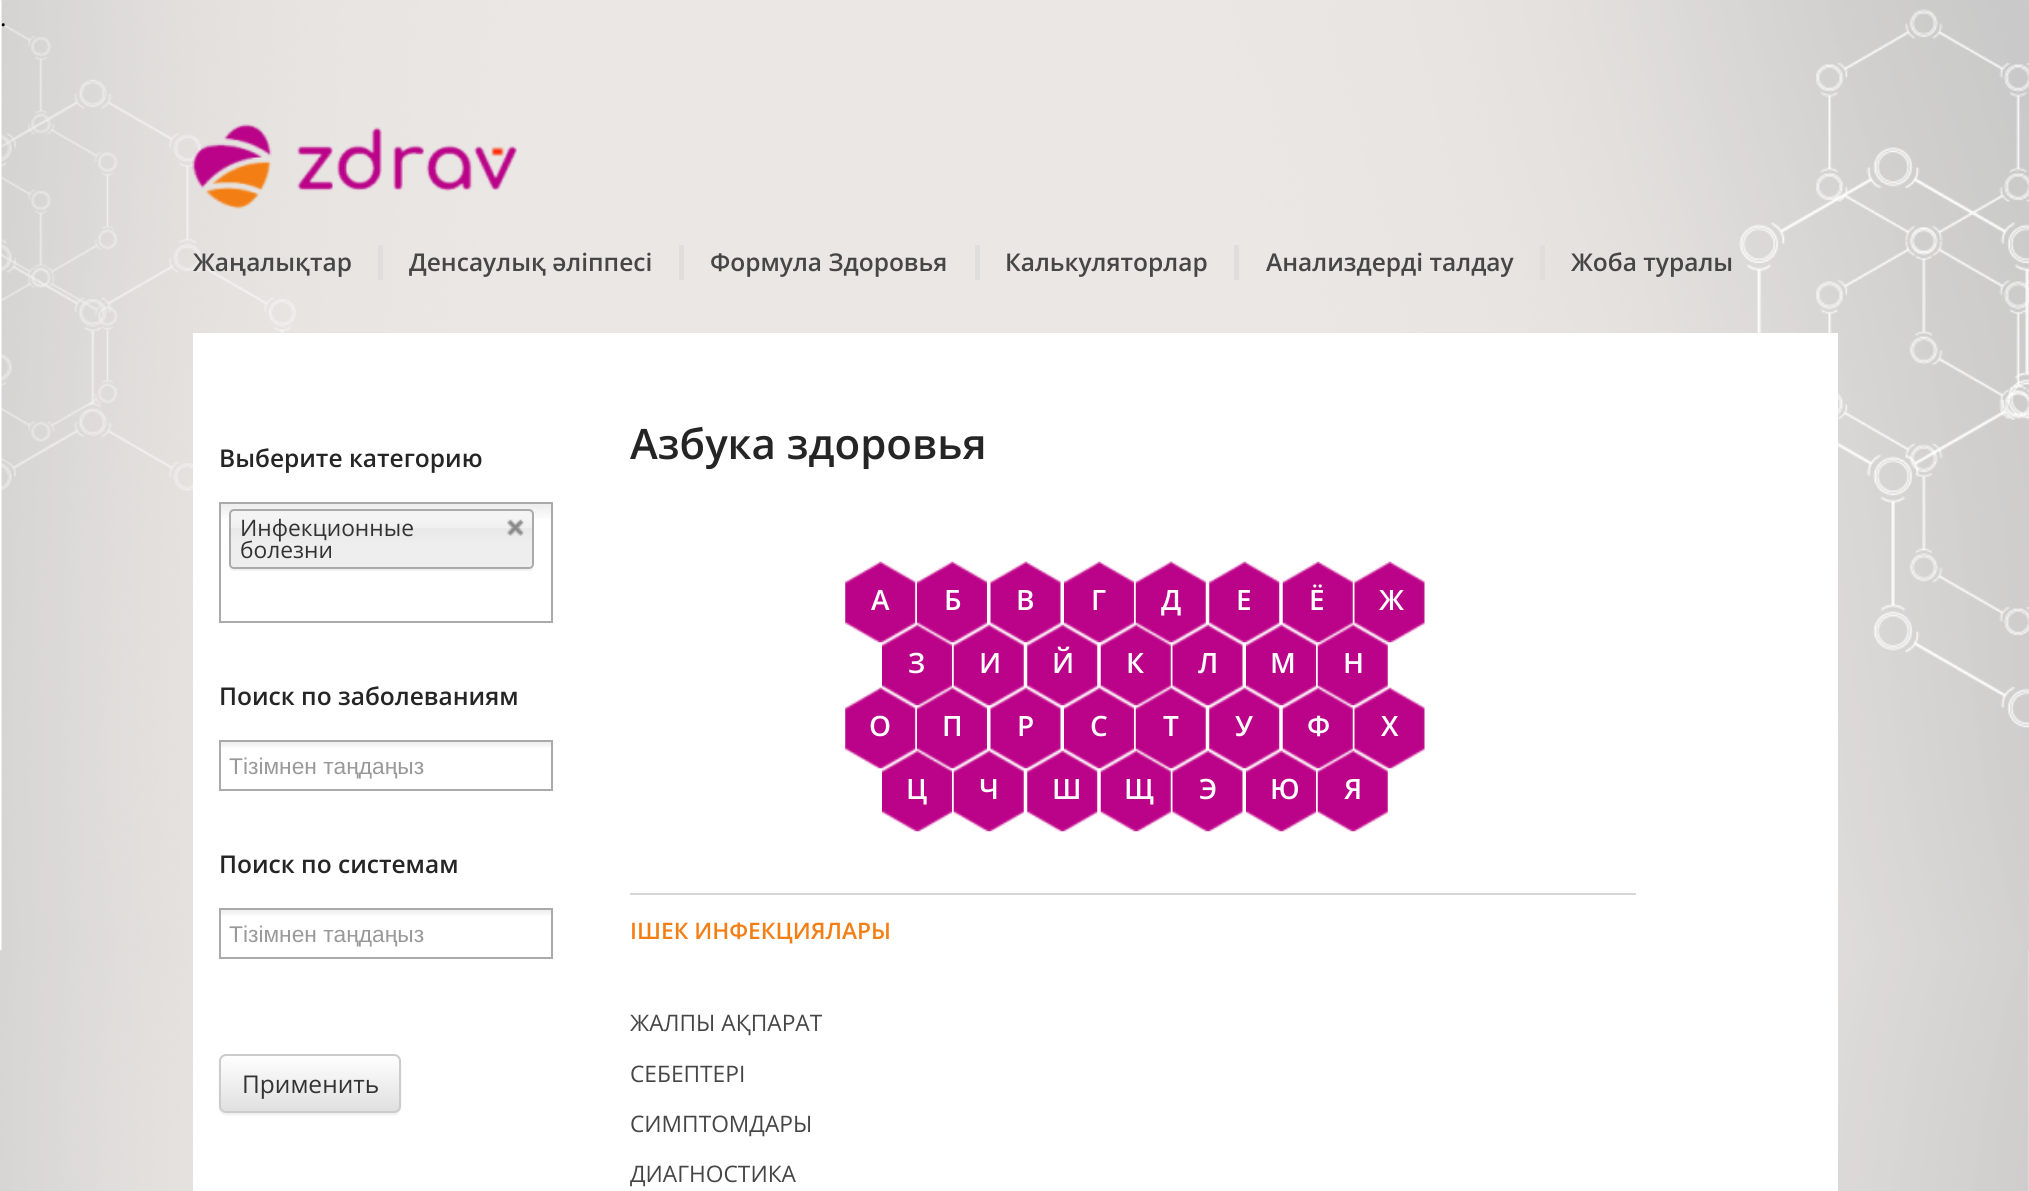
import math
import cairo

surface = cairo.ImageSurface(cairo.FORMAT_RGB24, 2029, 1191)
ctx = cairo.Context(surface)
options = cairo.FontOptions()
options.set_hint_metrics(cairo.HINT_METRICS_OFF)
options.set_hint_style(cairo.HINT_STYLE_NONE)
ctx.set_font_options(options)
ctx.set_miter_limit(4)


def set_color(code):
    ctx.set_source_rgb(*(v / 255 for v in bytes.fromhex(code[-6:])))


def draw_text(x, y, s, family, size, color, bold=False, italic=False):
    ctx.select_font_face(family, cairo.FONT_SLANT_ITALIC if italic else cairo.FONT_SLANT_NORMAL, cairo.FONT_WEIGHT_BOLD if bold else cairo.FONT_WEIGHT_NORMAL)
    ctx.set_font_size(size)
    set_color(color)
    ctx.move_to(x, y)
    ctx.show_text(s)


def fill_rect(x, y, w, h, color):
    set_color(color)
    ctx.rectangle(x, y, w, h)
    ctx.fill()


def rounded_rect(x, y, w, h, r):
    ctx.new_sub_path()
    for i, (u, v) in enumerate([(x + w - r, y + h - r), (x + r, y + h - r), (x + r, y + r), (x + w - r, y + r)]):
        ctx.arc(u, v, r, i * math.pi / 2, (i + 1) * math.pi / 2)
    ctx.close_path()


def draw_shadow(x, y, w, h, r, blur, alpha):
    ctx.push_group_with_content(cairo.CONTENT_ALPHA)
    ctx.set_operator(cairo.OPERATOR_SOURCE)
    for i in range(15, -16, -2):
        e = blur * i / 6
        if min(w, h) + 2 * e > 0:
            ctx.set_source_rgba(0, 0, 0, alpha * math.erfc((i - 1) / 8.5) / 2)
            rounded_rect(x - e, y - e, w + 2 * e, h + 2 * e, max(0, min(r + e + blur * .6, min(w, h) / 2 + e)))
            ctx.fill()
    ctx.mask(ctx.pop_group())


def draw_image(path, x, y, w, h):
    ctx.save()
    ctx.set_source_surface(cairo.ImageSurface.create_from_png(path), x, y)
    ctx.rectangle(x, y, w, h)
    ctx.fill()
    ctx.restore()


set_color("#ffffff")
ctx.paint()
draw_image("assets/img1.png", 0, 0, 2029, 1191)
draw_text(0, 26, ".", "Open Sans", 24.5, "#000000")
draw_image("assets/img2.png", 192, 124, 325, 85)
fill_rect(378, 245, 5, 35, "#dfdedd")
draw_text(193, 271, "Жаңалықтар", "Open Sans SemiBold", 24.5, "#464646")
fill_rect(679, 245, 5, 35, "#dfdedd")
draw_text(409, 271, "Денсаулық әліппесі", "Open Sans SemiBold", 24.5, "#464646")
fill_rect(975, 245, 5, 35, "#dfdedd")
draw_text(710, 271, "Формула Здоровья", "Open Sans SemiBold", 24.5, "#464646")
fill_rect(1234, 245, 5, 35, "#dfdedd")
draw_text(1005, 271, "Калькуляторлар", "Open Sans SemiBold", 24.5, "#464646")
fill_rect(1540, 245, 5, 35, "#dfdedd")
draw_text(1266, 271, "Анализдерді талдау", "Open Sans SemiBold", 24.5, "#464646")
draw_text(1571, 271, "Жоба туралы", "Open Sans SemiBold", 24.5, "#464646")
fill_rect(193, 333, 1645, 858, "#ffffff")
draw_text(219, 467, "Выберите категорию", "Open Sans SemiBold", 24.5, "#252525")
gradient = cairo.LinearGradient(386, 504, 386, 621)
gradient.add_color_stop_rgba(0.01, 0.933, 0.933, 0.933, 1)
gradient.add_color_stop_rgba(0.15, 1, 1, 1, 1)
ctx.set_source(gradient)
ctx.rectangle(221, 504, 330, 15)
ctx.fill()
ctx.rectangle(220, 503, 332, 119)
set_color("#aaaaaa")
ctx.stroke()
set_color("#f2f2f2")
ctx.new_path()
ctx.move_to(229, 514)
ctx.line_to(229, 566)
ctx.curve_to(229, 569, 231, 571, 234, 571)
ctx.line_to(529, 571)
ctx.curve_to(532, 571, 534, 569, 534, 566)
ctx.line_to(534, 514)
ctx.line_to(534, 555)
ctx.curve_to(534, 559, 535, 569, 528, 569)
ctx.line_to(234, 569)
ctx.curve_to(228, 569, 229, 559, 229, 555)
ctx.close_path()
ctx.fill()
set_color("#eeeeee")
rounded_rect(231, 511, 301, 56, 4)
ctx.fill()
gradient = cairo.LinearGradient(382, 511, 382, 544)
gradient.add_color_stop_rgba(0.2, 0.957, 0.957, 0.957, 1)
gradient.add_color_stop_rgba(0.5, 0.941, 0.941, 0.941, 1)
gradient.add_color_stop_rgba(0.52, 0.91, 0.91, 0.91, 1)
gradient.add_color_stop_rgba(1, 0.933, 0.933, 0.933, 1)
ctx.set_source(gradient)
ctx.new_path()
ctx.move_to(235, 511)
ctx.line_to(528, 511)
ctx.curve_to(530, 511, 532, 513, 532, 515)
ctx.line_to(532, 544)
ctx.line_to(231, 544)
ctx.line_to(231, 515)
ctx.curve_to(231, 513, 233, 511, 235, 511)
ctx.close_path()
ctx.fill()
rounded_rect(230, 510, 303, 58, 4)
set_color("#aaaaaa")
ctx.stroke()
draw_text(240, 536, "Инфекционные", "Open Sans", 22.75, "#333333")
draw_image("assets/img3.png", 507, 519, 17, 17)
draw_text(240, 558, "болезни", "Open Sans", 22.75, "#333333")
draw_text(219, 705, "Поиск по заболеваниям", "Open Sans SemiBold", 24.5, "#252525")
gradient = cairo.LinearGradient(386, 742, 386, 789)
gradient.add_color_stop_rgba(0.01, 0.933, 0.933, 0.933, 1)
gradient.add_color_stop_rgba(0.15, 1, 1, 1, 1)
ctx.set_source(gradient)
ctx.rectangle(221, 742, 330, 6)
ctx.fill()
ctx.rectangle(220, 741, 332, 49)
set_color("#aaaaaa")
ctx.stroke()
draw_text(229, 774, "Тізімнен таңдаңыз", "Liberation Sans", 22.75, "#999999")
draw_text(219, 873, "Поиск по системам", "Open Sans SemiBold", 24.5, "#252525")
gradient = cairo.LinearGradient(386, 910, 386, 957)
gradient.add_color_stop_rgba(0.01, 0.933, 0.933, 0.933, 1)
gradient.add_color_stop_rgba(0.15, 1, 1, 1, 1)
ctx.set_source(gradient)
ctx.rectangle(221, 910, 330, 6)
ctx.fill()
ctx.rectangle(220, 909, 332, 49)
set_color("#aaaaaa")
ctx.stroke()
draw_text(229, 942, "Тізімнен таңдаңыз", "Liberation Sans", 22.75, "#999999")
set_color("#000000")
draw_shadow(219, 1055, 182, 60, 7, 1, 0.07)
ctx.save()
rounded_rect(219, 1054, 182, 59, 7)
ctx.clip()
gradient = cairo.LinearGradient(310, 1055, 310, 1111)
gradient.add_color_stop_rgba(0, 1, 1, 1, 1)
gradient.add_color_stop_rgba(1, 0.878, 0.878, 0.878, 1)
ctx.set_source(gradient)
ctx.rectangle(219, 1055, 182, 56)
ctx.fill()
ctx.restore()
rounded_rect(220, 1055, 180, 57, 6)
set_color("#cccccc")
ctx.stroke()
draw_text(242, 1093, "Применить", "Open Sans", 24.5, "#333333")
draw_text(630, 459, "Азбука здоровья", "Open Sans SemiBold", 42, "#252525")
draw_image("assets/img4.png", 845, 561, 71, 82)
draw_text(871, 610, "А", "Open Sans SemiBold", 28, "#ffffff")
draw_image("assets/img5.png", 917, 561, 70, 82)
draw_text(944, 610, "Б", "Open Sans SemiBold", 28, "#ffffff")
draw_image("assets/img6.png", 990, 561, 71, 82)
draw_text(1016, 610, "В", "Open Sans SemiBold", 28, "#ffffff")
draw_image("assets/img5.png", 1064, 561, 70, 82)
draw_text(1091, 610, "Г", "Open Sans SemiBold", 28, "#ffffff")
draw_image("assets/img7.png", 1135, 561, 71, 82)
draw_text(1161, 610, "Д", "Open Sans SemiBold", 28, "#ffffff")
draw_image("assets/img4.png", 1209, 561, 71, 82)
draw_text(1236, 610, "Е", "Open Sans SemiBold", 28, "#ffffff")
draw_image("assets/img8.png", 1282, 561, 71, 82)
draw_text(1309, 610, "Ё", "Open Sans SemiBold", 28, "#ffffff")
draw_image("assets/img9.png", 1354, 561, 71, 82)
draw_text(1379, 610, "Ж", "Open Sans SemiBold", 28, "#ffffff")
draw_image("assets/img10.png", 882, 624, 70, 82)
draw_text(908, 673, "З", "Open Sans SemiBold", 28, "#ffffff")
draw_image("assets/img11.png", 953, 624, 71, 82)
draw_text(979, 673, "И", "Open Sans SemiBold", 28, "#ffffff")
draw_image("assets/img12.png", 1027, 624, 71, 82)
draw_text(1052, 673, "Й", "Open Sans SemiBold", 28, "#ffffff")
draw_image("assets/img13.png", 1100, 624, 71, 82)
draw_text(1126, 673, "К", "Open Sans SemiBold", 28, "#ffffff")
draw_image("assets/img14.png", 1172, 624, 71, 82)
draw_text(1198, 673, "Л", "Open Sans SemiBold", 28, "#ffffff")
draw_image("assets/img15.png", 1246, 624, 70, 82)
draw_text(1270, 673, "М", "Open Sans SemiBold", 28, "#ffffff")
draw_image("assets/img16.png", 1317, 624, 71, 82)
draw_text(1343, 673, "Н", "Open Sans SemiBold", 28, "#ffffff")
draw_image("assets/img17.png", 845, 687, 71, 82)
draw_text(869, 736, "О", "Open Sans SemiBold", 28, "#ffffff")
draw_image("assets/img18.png", 917, 687, 70, 82)
draw_text(942, 736, "П", "Open Sans SemiBold", 28, "#ffffff")
draw_image("assets/img19.png", 990, 687, 71, 82)
draw_text(1017, 736, "Р", "Open Sans SemiBold", 28, "#ffffff")
draw_image("assets/img20.png", 1064, 687, 70, 82)
draw_text(1090, 736, "С", "Open Sans SemiBold", 28, "#ffffff")
draw_image("assets/img21.png", 1135, 687, 71, 82)
draw_text(1163, 736, "Т", "Open Sans SemiBold", 28, "#ffffff")
draw_image("assets/img22.png", 1209, 687, 71, 82)
draw_text(1235, 736, "У", "Open Sans SemiBold", 28, "#ffffff")
draw_image("assets/img23.png", 1282, 687, 71, 82)
draw_text(1307, 736, "Ф", "Open Sans SemiBold", 28, "#ffffff")
draw_image("assets/img24.png", 1354, 687, 71, 82)
draw_text(1381, 736, "Х", "Open Sans SemiBold", 28, "#ffffff")
draw_image("assets/img10.png", 882, 750, 70, 82)
draw_text(906, 799, "Ц", "Open Sans SemiBold", 28, "#ffffff")
draw_image("assets/img11.png", 953, 750, 71, 82)
draw_text(979, 799, "Ч", "Open Sans SemiBold", 28, "#ffffff")
draw_image("assets/img12.png", 1027, 750, 71, 82)
draw_text(1052, 799, "Ш", "Open Sans SemiBold", 28, "#ffffff")
draw_image("assets/img13.png", 1100, 750, 71, 82)
draw_text(1124, 799, "Щ", "Open Sans SemiBold", 28, "#ffffff")
draw_image("assets/img14.png", 1172, 750, 71, 82)
draw_text(1199, 799, "Э", "Open Sans SemiBold", 28, "#ffffff")
draw_image("assets/img15.png", 1246, 750, 70, 82)
draw_text(1270, 799, "Ю", "Open Sans SemiBold", 28, "#ffffff")
draw_image("assets/img16.png", 1317, 750, 71, 82)
draw_text(1344, 799, "Я", "Open Sans SemiBold", 28, "#ffffff")
fill_rect(630, 893, 1006, 2, "#d7d7d7")
draw_text(630, 939, "ІШЕК ИНФЕКЦИЯЛАРЫ", "Open Sans SemiBold", 22.75, "#f37f14")
draw_text(630, 1031, "ЖАЛПЫ АҚПАРАТ", "Open Sans", 22.75, "#464646")
draw_text(630, 1082, "СЕБЕПТЕРІ", "Open Sans", 22.75, "#464646")
draw_text(630, 1132, "СИМПТОМДАРЫ", "Open Sans", 22.75, "#464646")
draw_text(630, 1182, "ДИАГНОСТИКА", "Open Sans", 22.75, "#464646")
surface.write_to_png("output.png")
